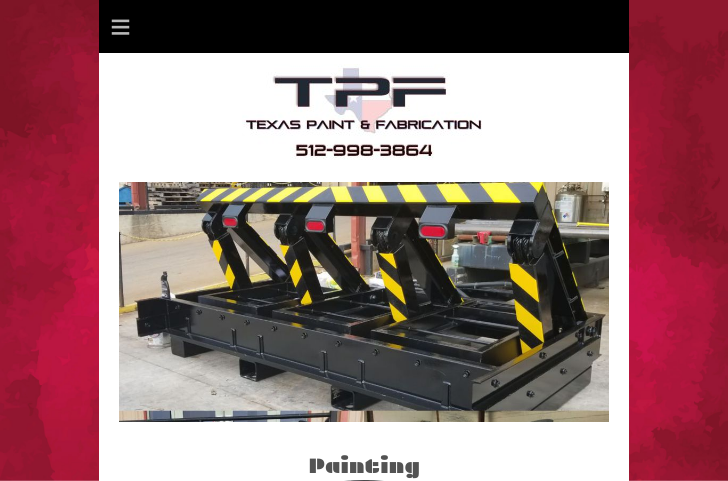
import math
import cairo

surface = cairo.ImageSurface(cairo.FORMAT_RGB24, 728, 481)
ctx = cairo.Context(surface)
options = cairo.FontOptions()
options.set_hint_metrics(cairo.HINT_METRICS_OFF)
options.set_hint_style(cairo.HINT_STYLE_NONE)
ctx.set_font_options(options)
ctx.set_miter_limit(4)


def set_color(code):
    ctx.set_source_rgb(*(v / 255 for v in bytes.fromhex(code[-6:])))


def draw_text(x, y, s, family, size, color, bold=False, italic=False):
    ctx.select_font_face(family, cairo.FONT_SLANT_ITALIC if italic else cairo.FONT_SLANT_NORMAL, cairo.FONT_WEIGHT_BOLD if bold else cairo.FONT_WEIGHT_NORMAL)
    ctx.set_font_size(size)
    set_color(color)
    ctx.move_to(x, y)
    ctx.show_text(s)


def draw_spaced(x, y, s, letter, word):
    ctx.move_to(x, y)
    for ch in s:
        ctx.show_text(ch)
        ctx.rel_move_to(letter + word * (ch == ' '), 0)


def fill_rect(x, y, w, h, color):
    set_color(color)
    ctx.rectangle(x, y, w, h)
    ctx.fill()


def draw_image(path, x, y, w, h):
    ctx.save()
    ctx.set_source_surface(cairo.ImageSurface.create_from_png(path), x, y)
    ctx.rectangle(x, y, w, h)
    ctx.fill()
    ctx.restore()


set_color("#ffffff")
ctx.paint()
draw_image("assets/img1.png", 0, 0, 728, 481)
fill_rect(99, 0, 530, 53, "#000000")
ctx.select_font_face("Liberation Sans")
ctx.set_font_size(36)
set_color("#b8b8b8")
draw_spaced(110, 39, "≡", 10, 0)
fill_rect(99, 53, 530, 428, "#ffffff")
draw_image("assets/img2.png", 242, 64, 240, 96)
draw_image("assets/img3.png", 119, 182, 490, 240)
draw_text(309, 473, "Painting", "Plaster", 20.75, "#535353", bold=True)
draw_image("assets/img4.png", 344, 480, 40, 1)
surface.write_to_png("output.png")
